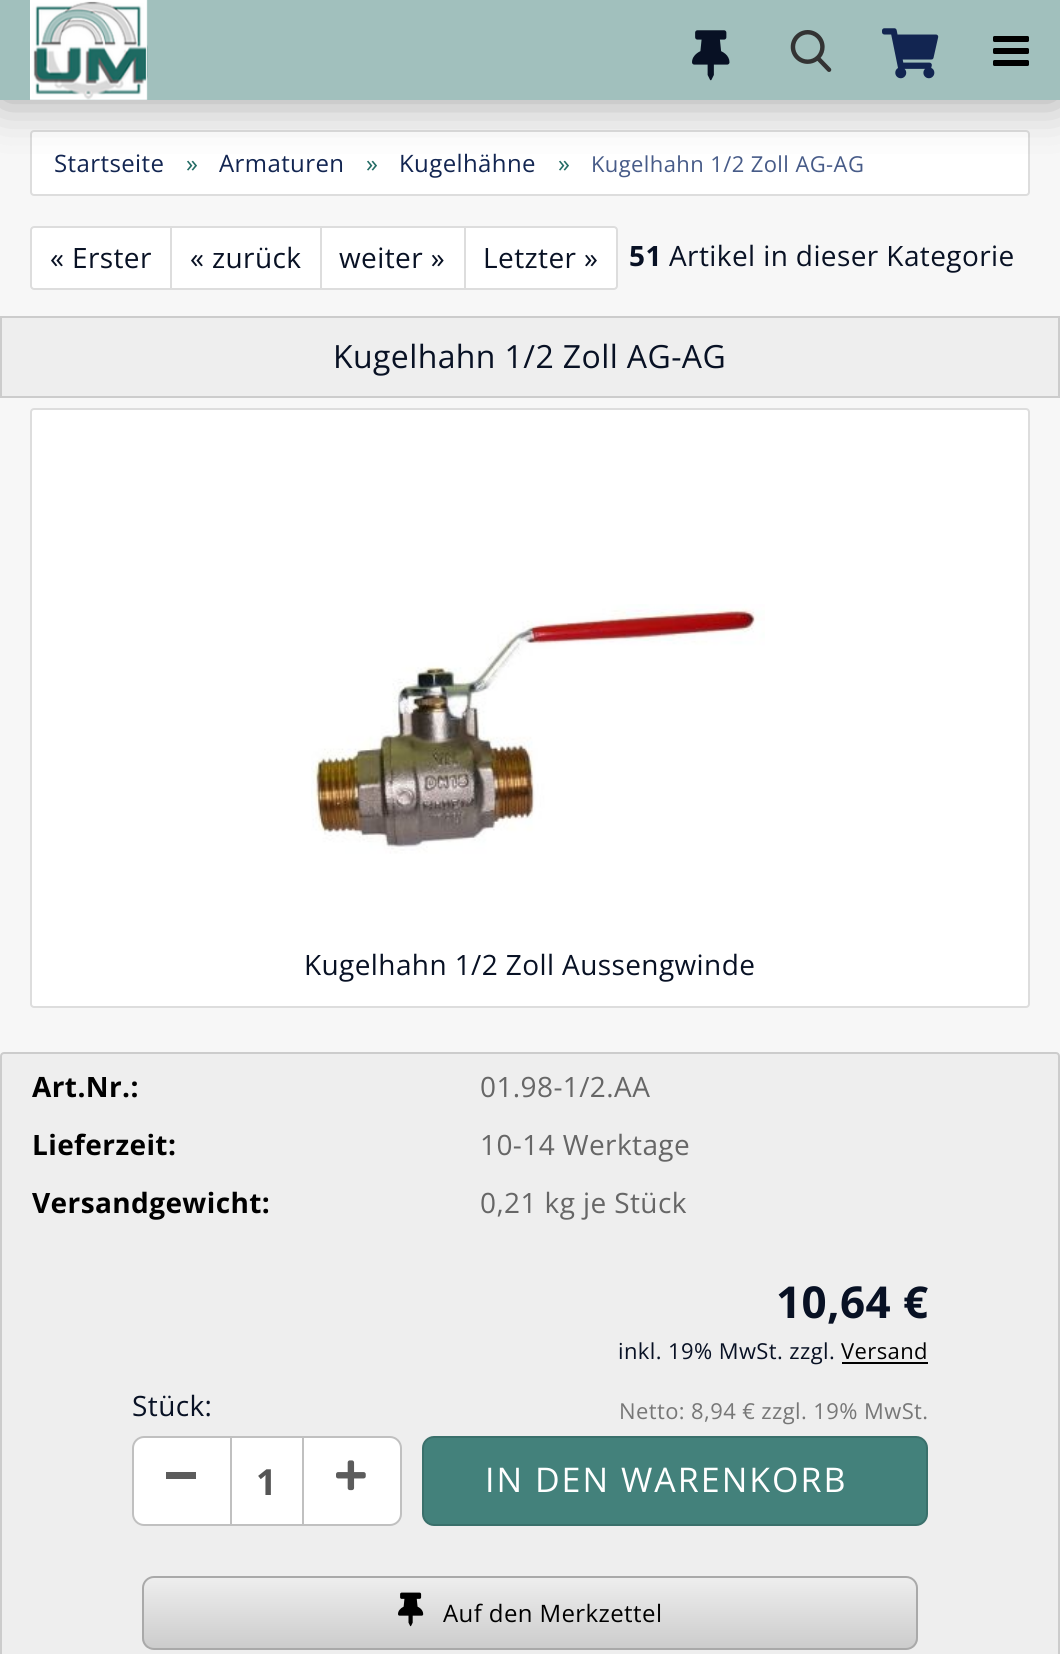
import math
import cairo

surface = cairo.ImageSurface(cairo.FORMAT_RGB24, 1060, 1654)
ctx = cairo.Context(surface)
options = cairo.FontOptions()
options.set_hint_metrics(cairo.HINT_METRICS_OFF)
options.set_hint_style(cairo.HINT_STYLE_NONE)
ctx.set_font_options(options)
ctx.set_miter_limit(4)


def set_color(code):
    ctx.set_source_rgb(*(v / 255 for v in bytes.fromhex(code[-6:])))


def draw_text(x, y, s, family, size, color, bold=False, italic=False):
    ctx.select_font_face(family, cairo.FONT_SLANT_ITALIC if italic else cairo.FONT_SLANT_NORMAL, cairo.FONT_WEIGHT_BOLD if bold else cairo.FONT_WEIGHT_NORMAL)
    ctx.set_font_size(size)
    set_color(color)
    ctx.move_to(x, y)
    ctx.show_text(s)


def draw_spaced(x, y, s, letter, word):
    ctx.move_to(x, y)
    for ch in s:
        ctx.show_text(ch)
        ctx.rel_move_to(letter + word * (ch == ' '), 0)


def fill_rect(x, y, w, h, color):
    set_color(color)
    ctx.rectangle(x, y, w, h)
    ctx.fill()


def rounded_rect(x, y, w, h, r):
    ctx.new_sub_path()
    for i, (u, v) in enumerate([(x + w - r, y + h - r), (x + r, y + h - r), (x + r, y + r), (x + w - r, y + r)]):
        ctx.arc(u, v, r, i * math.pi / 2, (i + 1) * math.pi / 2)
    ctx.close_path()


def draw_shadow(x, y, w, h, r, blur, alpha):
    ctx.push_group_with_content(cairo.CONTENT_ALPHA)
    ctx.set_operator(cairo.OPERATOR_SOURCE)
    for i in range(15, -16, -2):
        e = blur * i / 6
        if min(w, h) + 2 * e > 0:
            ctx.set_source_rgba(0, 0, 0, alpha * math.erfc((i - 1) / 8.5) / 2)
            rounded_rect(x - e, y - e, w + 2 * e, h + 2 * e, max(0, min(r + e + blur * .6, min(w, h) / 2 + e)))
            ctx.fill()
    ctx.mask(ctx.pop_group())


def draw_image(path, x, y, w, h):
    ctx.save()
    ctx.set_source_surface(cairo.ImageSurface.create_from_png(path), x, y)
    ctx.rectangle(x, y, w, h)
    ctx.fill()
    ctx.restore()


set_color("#f7f7f7")
ctx.paint()
set_color("#ffffff")
rounded_rect(31, 131, 998, 64, 3)
ctx.fill_preserve()
set_color("#dddddd")
ctx.stroke()
set_color("#000000")
draw_shadow(0, 0, 1060, 100, 0, 25, 0.35)
fill_rect(0, 0, 1060, 100, "#a1c0bd")
draw_image("assets/img1.png", 30, 0, 118, 100)
draw_image("assets/img2.png", 692, 30, 38, 51)
draw_image("assets/img3.png", 790, 30, 42, 42)
draw_image("assets/img4.png", 882, 28, 57, 51)
draw_image("assets/img5.png", 993, 36, 36, 30)
ctx.select_font_face("Open Sans")
ctx.set_font_size(24)
set_color("#122551")
draw_spaced(54, 172, "Startseite", 0.4, 0)
set_color("#246c65")
draw_spaced(186, 172, "»", 0.4, 0)
set_color("#122551")
draw_spaced(219, 172, "Armaturen", 0.4, 0)
set_color("#246c65")
draw_spaced(366, 172, "»", 0.4, 0)
set_color("#122551")
draw_spaced(399, 172, "Kugelhähne", 0.4, 0)
set_color("#246c65")
draw_spaced(558, 172, "»", 0.4, 0)
ctx.set_font_size(22)
set_color("#475b88")
draw_spaced(591, 172, "Kugelhahn 1/2 Zoll AG-AG", 0.4, 0)
set_color("#ffffff")
ctx.new_path()
ctx.move_to(34, 227)
ctx.line_to(171, 227)
ctx.line_to(171, 289)
ctx.line_to(34, 289)
ctx.curve_to(32.5, 289, 31, 287.5, 31, 286)
ctx.line_to(31, 230)
ctx.curve_to(31, 228.5, 32.5, 227, 34, 227)
ctx.close_path()
ctx.fill_preserve()
set_color("#dddddd")
ctx.stroke()
ctx.set_font_size(28)
set_color("#081124")
draw_spaced(50, 268, "« Erster", 0.4, 0)
set_color("#ffffff")
ctx.rectangle(171, 227, 150, 62)
ctx.fill_preserve()
set_color("#dddddd")
ctx.stroke()
set_color("#081124")
draw_spaced(190, 268, "« zurück", 0.4, 0)
set_color("#ffffff")
ctx.rectangle(321, 227, 144, 62)
ctx.fill_preserve()
set_color("#dddddd")
ctx.stroke()
set_color("#081124")
draw_spaced(339, 268, "weiter »", 0.4, 0)
set_color("#ffffff")
ctx.new_path()
ctx.move_to(465, 227)
ctx.line_to(614, 227)
ctx.curve_to(615.5, 227, 617, 228.5, 617, 230)
ctx.line_to(617, 286)
ctx.curve_to(617, 287.5, 615.5, 289, 614, 289)
ctx.line_to(465, 289)
ctx.close_path()
ctx.fill_preserve()
set_color("#dddddd")
ctx.stroke()
set_color("#081124")
draw_spaced(483, 268, "Letzter »", 0.4, 0)
ctx.select_font_face("Open Sans", cairo.FONT_SLANT_NORMAL, cairo.FONT_WEIGHT_BOLD)
draw_spaced(629, 266, "51", 0.4, 0)
ctx.select_font_face("Open Sans")
draw_spaced(669, 266, "Artikel in dieser Kategorie", 0.4, 0)
set_color("#eeeeee")
ctx.rectangle(1, 317, 1058, 80)
ctx.fill_preserve()
set_color("#cccccc")
ctx.stroke()
ctx.set_font_size(32)
set_color("#081124")
draw_spaced(333, 368, "Kugelhahn 1/2 Zoll AG-AG", 0.4, 0)
set_color("#ffffff")
rounded_rect(31, 409, 998, 598, 3)
ctx.fill_preserve()
set_color("#dddddd")
ctx.stroke()
draw_image("assets/img6.png", 311, 604, 454, 250)
ctx.set_font_size(28)
set_color("#081124")
draw_spaced(304, 975, "Kugelhahn 1/2 Zoll Aussengwinde", 0.4, 0)
set_color("#eeeeee")
rounded_rect(1, 1053, 1058, 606, 3)
ctx.fill_preserve()
set_color("#cccccc")
ctx.stroke()
ctx.select_font_face("Open Sans", cairo.FONT_SLANT_NORMAL, cairo.FONT_WEIGHT_BOLD)
set_color("#000000")
draw_spaced(32, 1097, "Art.Nr.:", 0.4, 0)
ctx.select_font_face("Open Sans")
set_color("#666666")
draw_spaced(480, 1097, "01.98-1/2.AA", 0.4, 0)
ctx.select_font_face("Open Sans", cairo.FONT_SLANT_NORMAL, cairo.FONT_WEIGHT_BOLD)
set_color("#000000")
draw_spaced(32, 1155, "Lieferzeit:", 0.4, 0)
ctx.select_font_face("Open Sans")
set_color("#666666")
draw_spaced(480, 1155, "10-14 Werktage", 0.4, 0)
ctx.select_font_face("Open Sans", cairo.FONT_SLANT_NORMAL, cairo.FONT_WEIGHT_BOLD)
set_color("#000000")
draw_spaced(32, 1213, "Versandgewicht:", 0.4, 0)
ctx.select_font_face("Open Sans")
set_color("#666666")
draw_spaced(480, 1213, "0,21 kg je Stück", 0.4, 0)
ctx.select_font_face("Open Sans", cairo.FONT_SLANT_NORMAL, cairo.FONT_WEIGHT_BOLD)
ctx.set_font_size(44)
set_color("#081124")
draw_spaced(776, 1318, "10,64 €", 0.4, 0)
ctx.select_font_face("Open Sans")
ctx.set_font_size(22)
draw_spaced(618, 1359, "inkl. 19% MwSt. zzgl.", 0.4, 0)
set_color("#000000")
draw_spaced(841, 1359, "Versand", 0.4, 0)
fill_rect(842, 1362, 86, 2, "#000000")
ctx.set_font_size(28)
set_color("#081124")
draw_spaced(132, 1416, "Stück:", 0.4, 0)
ctx.set_font_size(22)
set_color("#777777")
draw_spaced(619, 1419, "Netto: 8,94 € zzgl. 19% MwSt.", 0.4, 0)
set_color("#ffffff")
ctx.new_path()
ctx.move_to(144, 1437)
ctx.line_to(231, 1437)
ctx.line_to(231, 1525)
ctx.line_to(144, 1525)
ctx.curve_to(138, 1525, 133, 1520, 133, 1514)
ctx.line_to(133, 1448)
ctx.curve_to(133, 1442, 138, 1437, 144, 1437)
ctx.close_path()
ctx.fill_preserve()
set_color("#c0c0c0")
ctx.stroke()
fill_rect(166, 1472, 30, 7, "#5c5c5c")
fill_rect(232, 1438, 70, 86, "#ffffff")
fill_rect(232, 1436, 70, 2, "#c0c0c0")
fill_rect(232, 1524, 70, 2, "#c0c0c0")
draw_text(256, 1495, "1", "Open Sans", 36, "#555555", bold=True)
set_color("#ffffff")
ctx.new_path()
ctx.move_to(303, 1437)
ctx.line_to(390, 1437)
ctx.curve_to(396, 1437, 401, 1442, 401, 1448)
ctx.line_to(401, 1514)
ctx.curve_to(401, 1520, 396, 1525, 390, 1525)
ctx.line_to(303, 1525)
ctx.close_path()
ctx.fill_preserve()
set_color("#c0c0c0")
ctx.stroke()
draw_image("assets/img7.png", 336, 1460, 30, 31)
set_color("#43817b")
rounded_rect(423, 1437, 504, 88, 11)
ctx.fill_preserve()
set_color("#3a706b")
ctx.stroke()
ctx.select_font_face("Open Sans")
ctx.set_font_size(34)
set_color("#ffffff")
draw_spaced(485, 1492, "IN DEN WARENKORB", 2, 0)
ctx.save()
rounded_rect(142, 1576, 776, 74, 12)
ctx.clip()
gradient = cairo.LinearGradient(530, 1578, 530, 1648)
gradient.add_color_stop_rgba(0, 0.933, 0.933, 0.933, 1)
gradient.add_color_stop_rgba(1, 0.8, 0.8, 0.8, 1)
ctx.set_source(gradient)
ctx.rectangle(142, 1578, 776, 70)
ctx.fill()
ctx.restore()
rounded_rect(143, 1577, 774, 72, 11)
set_color("#a9a9a9")
ctx.stroke()
draw_image("assets/img8.png", 398, 1592, 26, 35)
ctx.set_font_size(24)
set_color("#000000")
draw_spaced(443, 1622, "Auf den Merkzettel", 0.4, 0)
surface.write_to_png("output.png")
